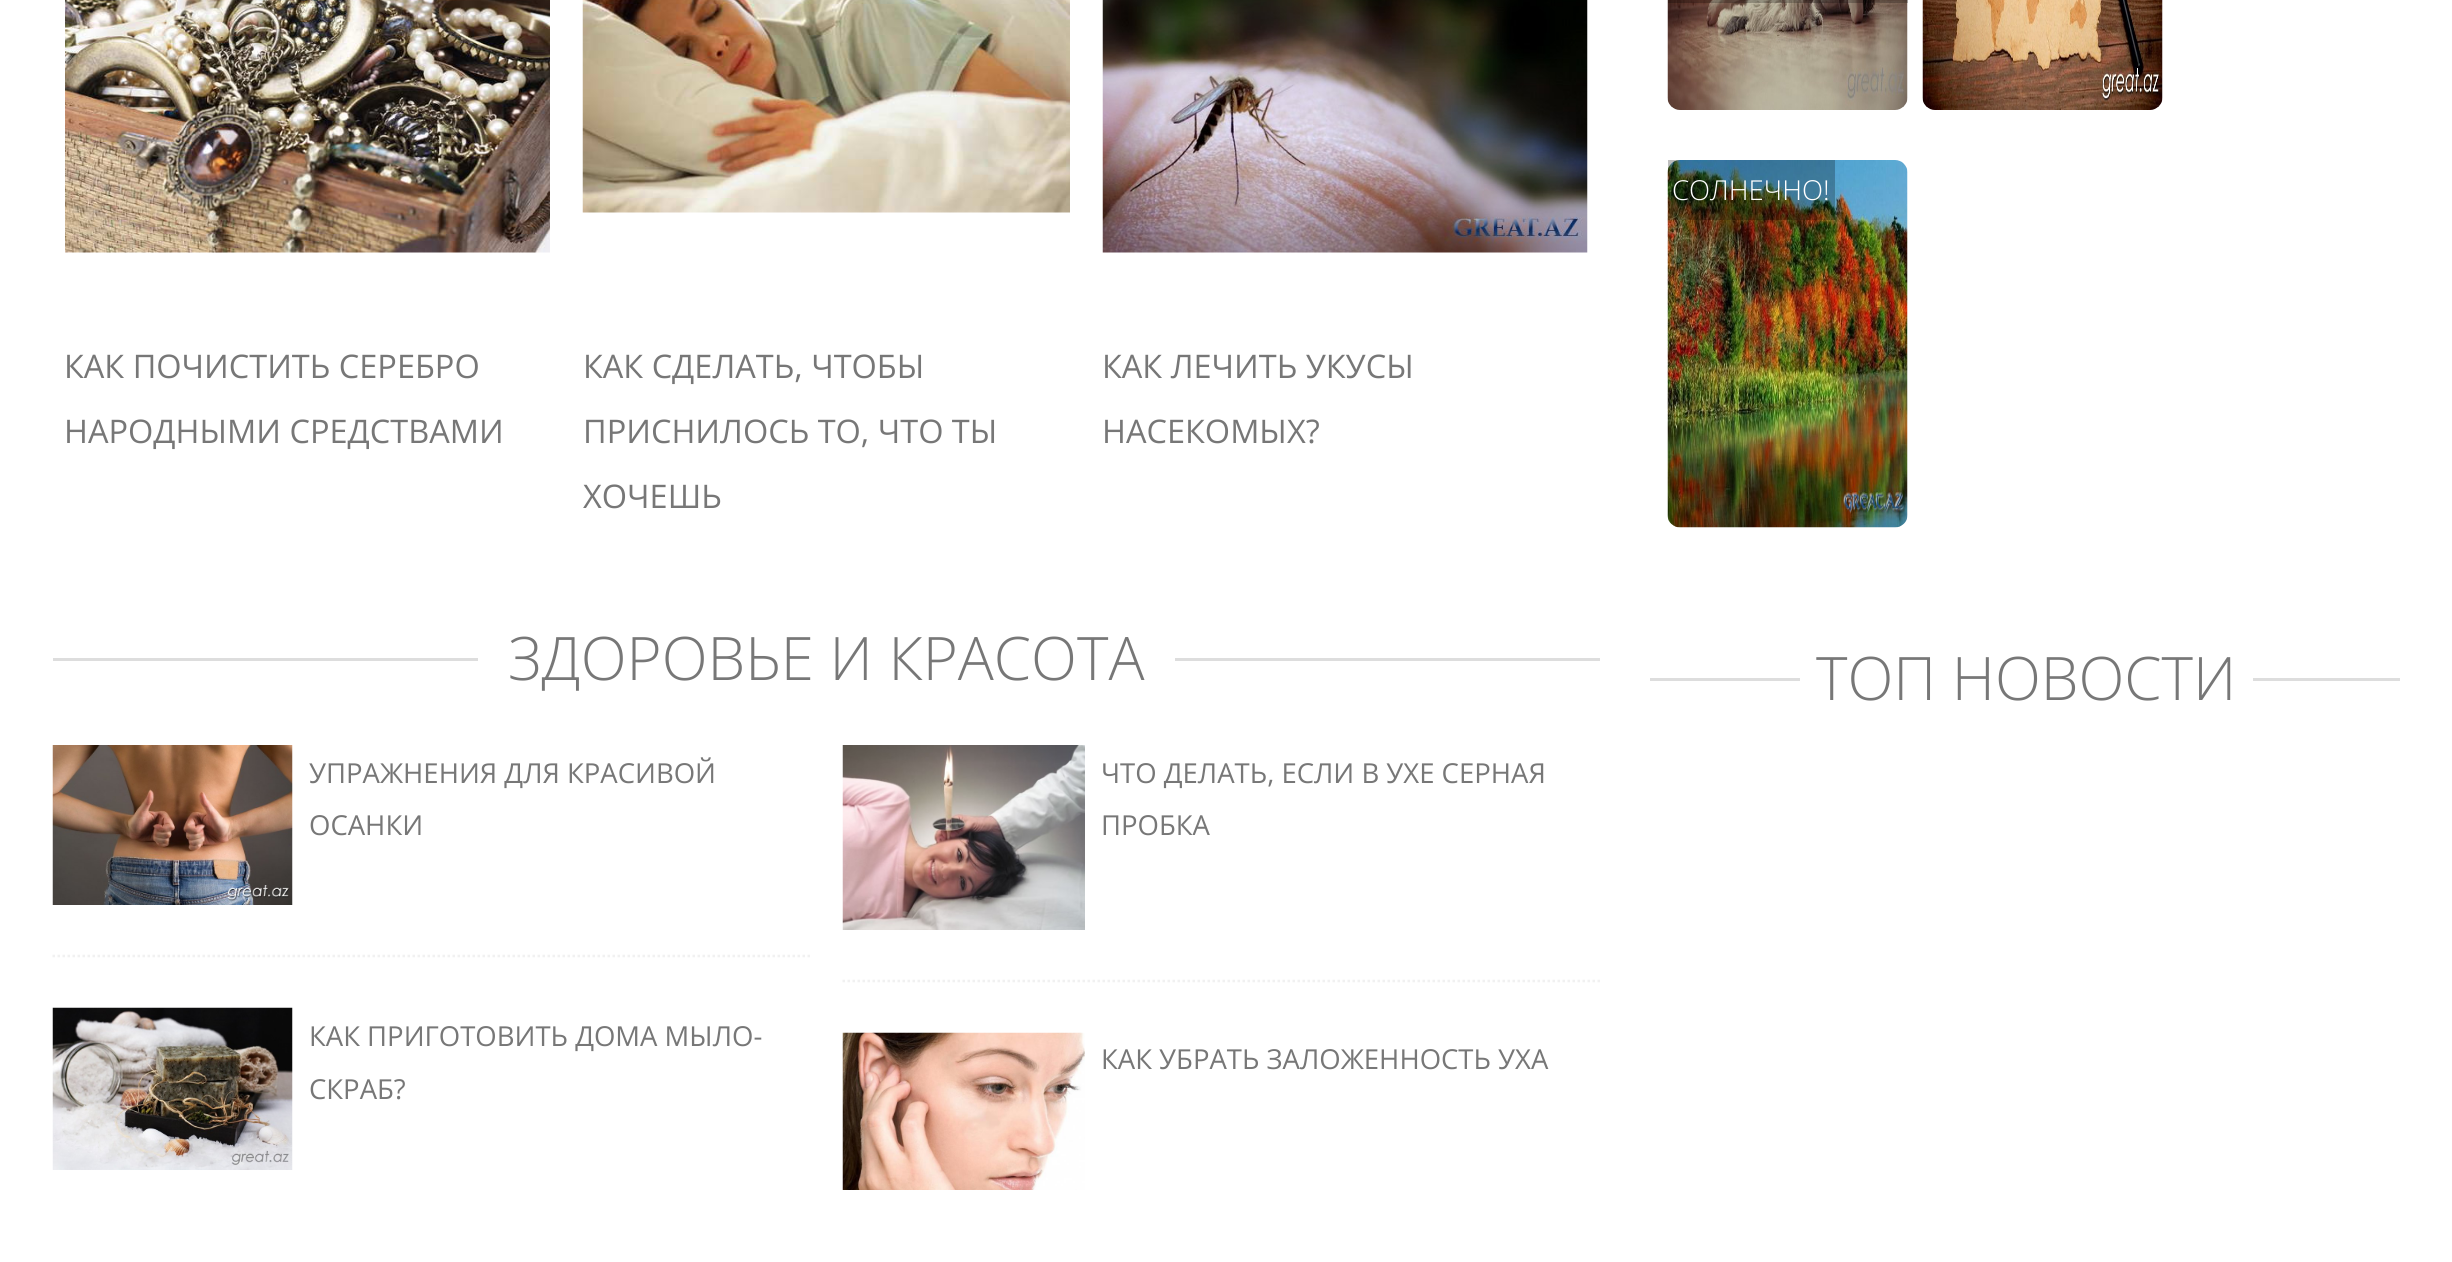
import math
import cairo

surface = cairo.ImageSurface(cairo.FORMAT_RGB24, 2452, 1262)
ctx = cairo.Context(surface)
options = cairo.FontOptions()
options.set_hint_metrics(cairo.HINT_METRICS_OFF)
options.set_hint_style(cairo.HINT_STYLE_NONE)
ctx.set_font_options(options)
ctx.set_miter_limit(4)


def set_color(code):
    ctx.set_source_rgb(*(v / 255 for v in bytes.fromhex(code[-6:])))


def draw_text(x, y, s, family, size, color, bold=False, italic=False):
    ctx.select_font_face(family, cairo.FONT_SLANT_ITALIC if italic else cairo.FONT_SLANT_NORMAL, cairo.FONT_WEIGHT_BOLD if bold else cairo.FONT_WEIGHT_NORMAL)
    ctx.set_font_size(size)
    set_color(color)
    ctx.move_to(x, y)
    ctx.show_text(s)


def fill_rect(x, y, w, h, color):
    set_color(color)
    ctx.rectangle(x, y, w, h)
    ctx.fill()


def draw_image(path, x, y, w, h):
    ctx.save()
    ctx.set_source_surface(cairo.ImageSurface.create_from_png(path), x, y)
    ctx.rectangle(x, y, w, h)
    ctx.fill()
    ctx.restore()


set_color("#ffffff")
ctx.paint()
draw_image("assets/img1.png", 65, 0, 485, 253)
draw_text(64, 378, "КАК ПОЧИСТИТЬ СЕРЕБРО", "Open Sans", 32.5, "#777777")
draw_text(64, 443, "НАРОДНЫМИ СРЕДСТВАМИ", "Open Sans", 32.5, "#777777")
draw_image("assets/img2.png", 582, 0, 488, 213)
draw_text(583, 378, "КАК СДЕЛАТЬ, ЧТОБЫ", "Open Sans", 32.5, "#777777")
draw_text(583, 443, "ПРИСНИЛОСЬ ТО, ЧТО ТЫ", "Open Sans", 32.5, "#777777")
draw_text(583, 508, "ХОЧЕШЬ", "Open Sans", 32.5, "#777777")
draw_image("assets/img3.png", 1102, 0, 486, 253)
draw_text(1102, 378, "КАК ЛЕЧИТЬ УКУСЫ", "Open Sans", 32.5, "#777777")
draw_text(1102, 443, "НАСЕКОМЫХ?", "Open Sans", 32.5, "#777777")
fill_rect(53, 658, 425, 3, "#dddddd")
draw_text(508, 680, "ЗДОРОВЬЕ И КРАСОТА", "Open Sans Light", 60, "#777777")
fill_rect(1175, 658, 425, 3, "#dddddd")
ctx.new_path()
ctx.move_to(52.5, 956)
ctx.line_to(810, 956)
set_color("#f1f1f1")
ctx.set_line_width(2.5)
ctx.set_dash([2.5, 2.5])
ctx.stroke()
draw_image("assets/img4.png", 52, 745, 241, 160)
draw_text(309, 783, "УПРАЖНЕНИЯ ДЛЯ КРАСИВОЙ", "Open Sans", 27.5, "#777777")
draw_text(309, 835, "ОСАНКИ", "Open Sans", 27.5, "#777777")
draw_image("assets/img5.png", 52, 1007, 241, 163)
draw_text(309, 1046, "КАК ПРИГОТОВИТЬ ДОМА МЫЛО-", "Open Sans", 27.5, "#777777")
draw_text(309, 1099, "СКРАБ?", "Open Sans", 27.5, "#777777")
ctx.new_path()
ctx.move_to(842.5, 981)
ctx.line_to(1600, 981)
set_color("#f1f1f1")
ctx.stroke()
draw_image("assets/img6.png", 842, 745, 243, 185)
draw_text(1101, 783, "ЧТО ДЕЛАТЬ, ЕСЛИ В УХЕ СЕРНАЯ", "Open Sans", 27.5, "#777777")
draw_text(1101, 835, "ПРОБКА", "Open Sans", 27.5, "#777777")
draw_image("assets/img7.png", 842, 1032, 243, 158)
draw_text(1101, 1069, "КАК УБРАТЬ ЗАЛОЖЕННОСТЬ УХА", "Open Sans", 27.5, "#777777")
draw_image("assets/img8.png", 1667, 0, 241, 110)
ctx.set_source_rgba(0, 0, 0, 0.25)
ctx.rectangle(1668, 0, 240, 3)
ctx.fill()
draw_image("assets/img9.png", 1922, 0, 241, 110)
draw_image("assets/img10.png", 1667, 160, 241, 368)
ctx.rectangle(1668, 160, 167, 60)
ctx.fill()
draw_text(1672, 200, "СОЛНЕЧНО!", "Open Sans Light", 27.5, "#ffffff")
fill_rect(1650, 678, 150, 3, "#dddddd")
draw_text(1816, 700, "ТОП НОВОСТИ", "Open Sans Light", 60, "#777777")
fill_rect(2253, 678, 147, 3, "#dddddd")
surface.write_to_png("output.png")
